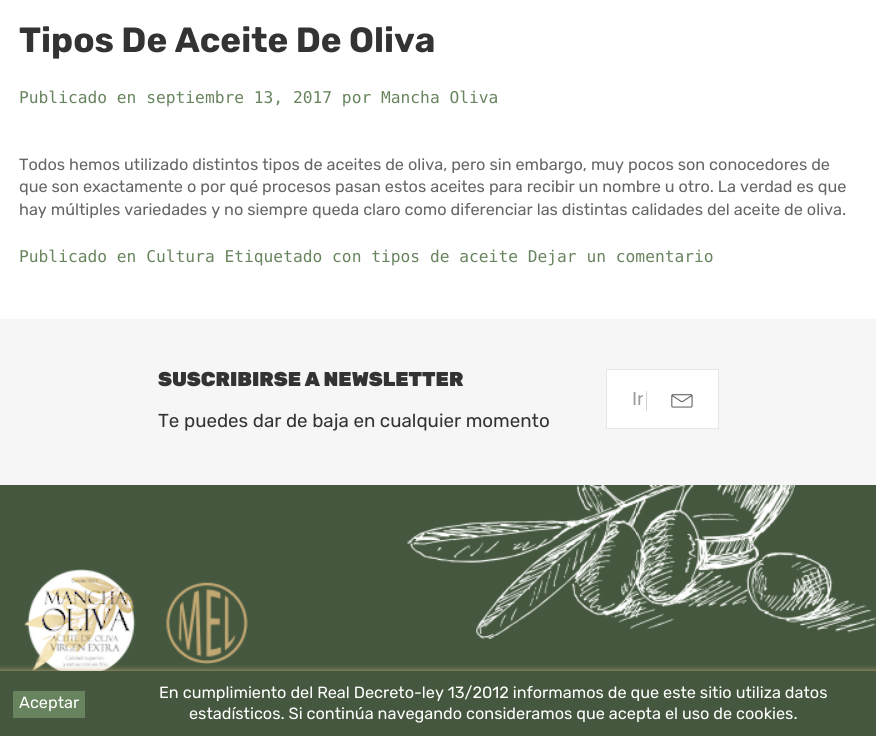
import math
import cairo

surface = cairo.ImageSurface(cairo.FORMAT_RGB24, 876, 736)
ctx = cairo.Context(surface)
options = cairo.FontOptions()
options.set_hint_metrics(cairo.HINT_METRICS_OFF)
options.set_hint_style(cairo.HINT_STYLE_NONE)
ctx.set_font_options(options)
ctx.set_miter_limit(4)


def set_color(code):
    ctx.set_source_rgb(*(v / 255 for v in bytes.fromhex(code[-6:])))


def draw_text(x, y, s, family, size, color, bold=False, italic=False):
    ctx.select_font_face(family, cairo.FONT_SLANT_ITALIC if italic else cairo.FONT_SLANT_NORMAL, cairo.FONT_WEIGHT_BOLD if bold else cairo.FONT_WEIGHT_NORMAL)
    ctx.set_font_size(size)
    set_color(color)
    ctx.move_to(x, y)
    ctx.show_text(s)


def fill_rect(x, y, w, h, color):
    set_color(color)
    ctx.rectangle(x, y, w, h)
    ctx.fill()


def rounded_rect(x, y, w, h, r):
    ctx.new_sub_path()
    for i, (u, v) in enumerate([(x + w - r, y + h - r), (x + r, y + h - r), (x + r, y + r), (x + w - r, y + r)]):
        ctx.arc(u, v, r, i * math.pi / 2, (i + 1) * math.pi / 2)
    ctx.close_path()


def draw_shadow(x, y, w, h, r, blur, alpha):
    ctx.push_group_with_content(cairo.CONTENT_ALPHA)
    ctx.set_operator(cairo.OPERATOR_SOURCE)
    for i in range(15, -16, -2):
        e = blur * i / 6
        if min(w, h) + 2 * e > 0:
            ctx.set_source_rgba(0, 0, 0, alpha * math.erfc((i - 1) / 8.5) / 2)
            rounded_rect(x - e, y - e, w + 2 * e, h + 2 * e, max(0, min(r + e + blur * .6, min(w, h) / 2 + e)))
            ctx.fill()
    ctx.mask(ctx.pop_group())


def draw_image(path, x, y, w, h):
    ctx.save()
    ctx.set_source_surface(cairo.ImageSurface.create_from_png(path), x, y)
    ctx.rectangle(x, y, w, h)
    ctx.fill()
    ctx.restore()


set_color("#ffffff")
ctx.paint()
draw_text(19, 52, "Tipos De Aceite De Oliva", "Rubik", 35, "#333333", bold=True)
draw_text(19, 103, "Publicado en septiembre 13, 2017 por Mancha Oliva", "DejaVu Sans Mono", 16.25, "#68845e")
draw_text(19, 170, "Todos hemos utilizado distintos tipos de aceites de oliva, pero sin embargo, muy pocos son conocedores de", "Rubik", 16.25, "#666666")
draw_text(19, 192, "que son exactamente o por qué procesos pasan estos aceites para recibir un nombre u otro. La verdad es que", "Rubik", 16.25, "#666666")
draw_text(19, 215, "hay múltiples variedades y no siempre queda claro como diferenciar las distintas calidades del aceite de oliva.", "Rubik", 16.25, "#666666")
draw_text(19, 262, "Publicado en Cultura Etiquetado con tipos de aceite Dejar un comentario", "DejaVu Sans Mono", 16.25, "#68845e")
fill_rect(0, 319, 876, 166, "#f6f6f6")
draw_text(158, 386, "SUSCRIBIRSE A NEWSLETTER", "Rubik Black", 20, "#333333")
draw_text(158, 427, "Te puedes dar de baja en cualquier momento", "Rubik", 18.75, "#333333")
set_color("#ffffff")
ctx.rectangle(606.5, 369.5, 112, 59)
ctx.fill_preserve()
set_color("#e6e6e6")
ctx.set_line_width(1)
ctx.stroke()
ctx.save()
ctx.rectangle(633, 388, 10, 22)
ctx.clip()
draw_text(632, 405, "In", "Rubik", 18.75, "#9c9b9b")
ctx.restore()
fill_rect(646, 391, 1, 20, "#d2d2d2")
draw_image("assets/img1.png", 671, 394, 22, 14)
fill_rect(0, 485, 876, 186, "#45583f")
draw_image("assets/img2.png", 407, 485, 469, 154)
draw_image("assets/img3.png", 24, 569, 112, 102)
draw_image("assets/img4.png", 166, 582, 82, 83)
set_color("#c2a773")
draw_shadow(0, 671, 876, 65, 0, 3, 1)
fill_rect(0, 671, 876, 65, "#45583f")
fill_rect(13, 691, 72, 27, "#68845e")
draw_text(19, 708, "Aceptar", "Rubik", 16.25, "#ffffff")
draw_text(159, 698, "En cumplimiento del Real Decreto-ley 13/2012 informamos de que este sitio utiliza datos", "Rubik", 16.25, "#ffffff")
draw_text(189, 719, "estadísticos. Si continúa navegando consideramos que acepta el uso de cookies.", "Rubik", 16.25, "#ffffff")
surface.write_to_png("output.png")
